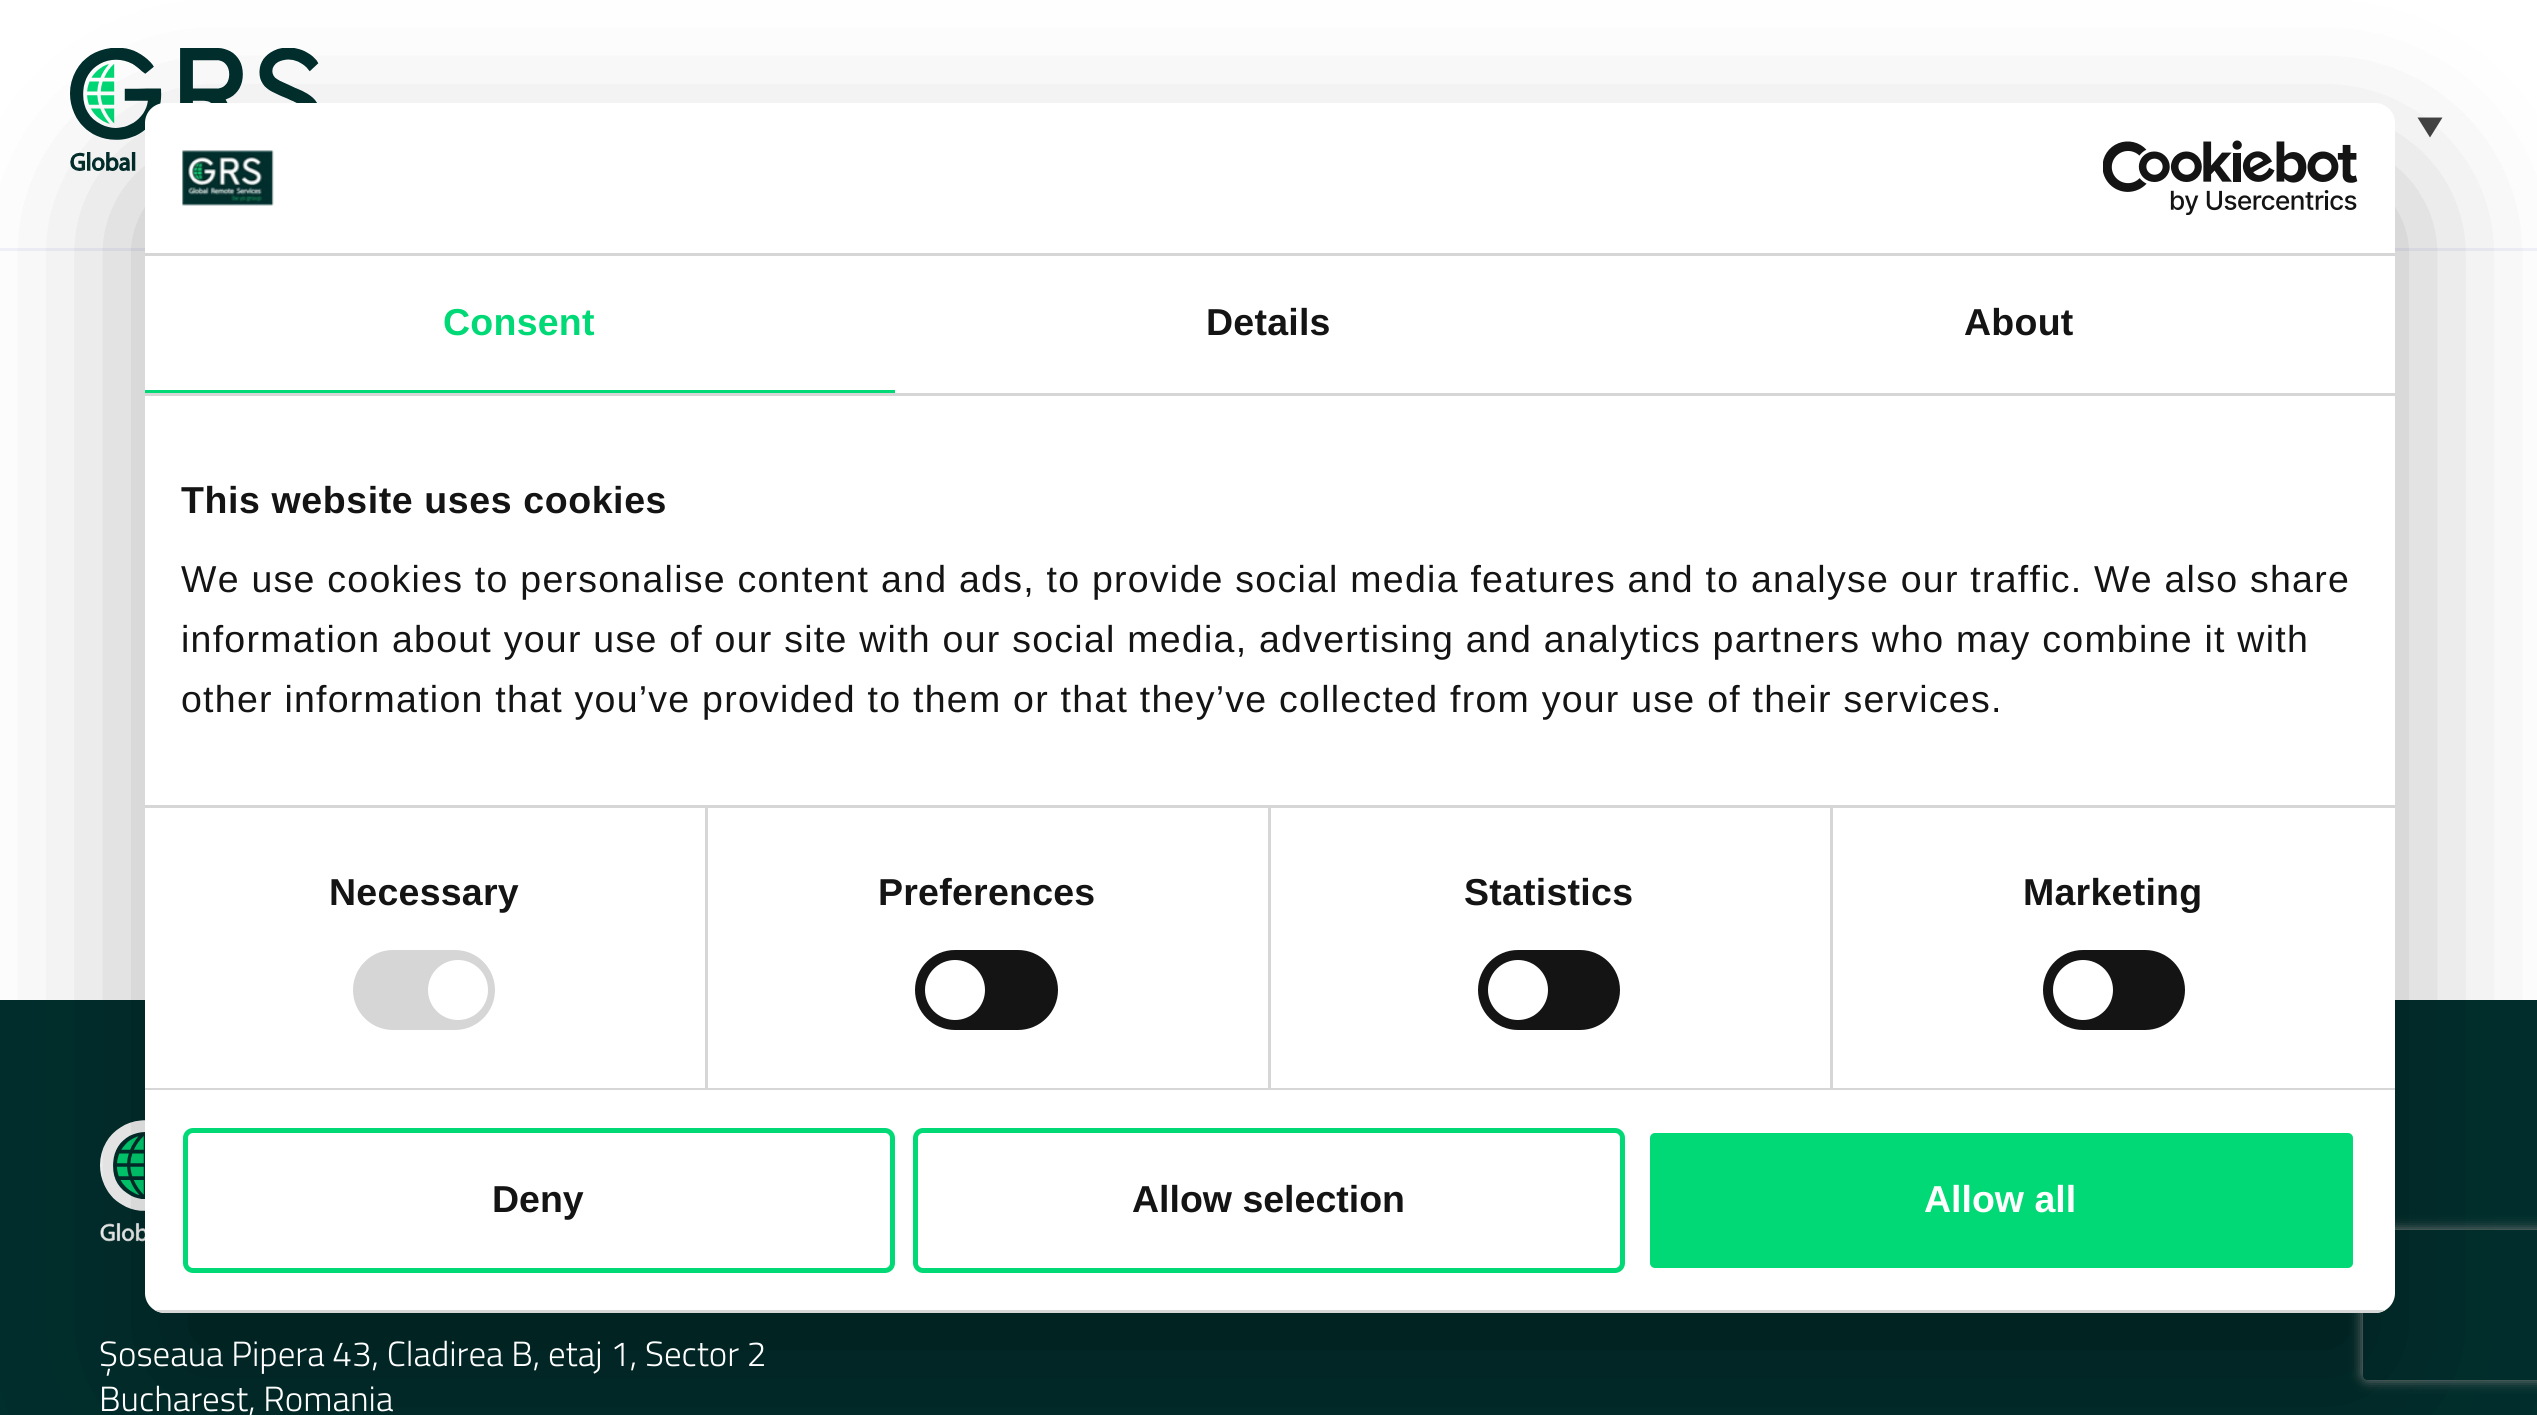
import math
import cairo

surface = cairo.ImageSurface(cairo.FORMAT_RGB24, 2537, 1415)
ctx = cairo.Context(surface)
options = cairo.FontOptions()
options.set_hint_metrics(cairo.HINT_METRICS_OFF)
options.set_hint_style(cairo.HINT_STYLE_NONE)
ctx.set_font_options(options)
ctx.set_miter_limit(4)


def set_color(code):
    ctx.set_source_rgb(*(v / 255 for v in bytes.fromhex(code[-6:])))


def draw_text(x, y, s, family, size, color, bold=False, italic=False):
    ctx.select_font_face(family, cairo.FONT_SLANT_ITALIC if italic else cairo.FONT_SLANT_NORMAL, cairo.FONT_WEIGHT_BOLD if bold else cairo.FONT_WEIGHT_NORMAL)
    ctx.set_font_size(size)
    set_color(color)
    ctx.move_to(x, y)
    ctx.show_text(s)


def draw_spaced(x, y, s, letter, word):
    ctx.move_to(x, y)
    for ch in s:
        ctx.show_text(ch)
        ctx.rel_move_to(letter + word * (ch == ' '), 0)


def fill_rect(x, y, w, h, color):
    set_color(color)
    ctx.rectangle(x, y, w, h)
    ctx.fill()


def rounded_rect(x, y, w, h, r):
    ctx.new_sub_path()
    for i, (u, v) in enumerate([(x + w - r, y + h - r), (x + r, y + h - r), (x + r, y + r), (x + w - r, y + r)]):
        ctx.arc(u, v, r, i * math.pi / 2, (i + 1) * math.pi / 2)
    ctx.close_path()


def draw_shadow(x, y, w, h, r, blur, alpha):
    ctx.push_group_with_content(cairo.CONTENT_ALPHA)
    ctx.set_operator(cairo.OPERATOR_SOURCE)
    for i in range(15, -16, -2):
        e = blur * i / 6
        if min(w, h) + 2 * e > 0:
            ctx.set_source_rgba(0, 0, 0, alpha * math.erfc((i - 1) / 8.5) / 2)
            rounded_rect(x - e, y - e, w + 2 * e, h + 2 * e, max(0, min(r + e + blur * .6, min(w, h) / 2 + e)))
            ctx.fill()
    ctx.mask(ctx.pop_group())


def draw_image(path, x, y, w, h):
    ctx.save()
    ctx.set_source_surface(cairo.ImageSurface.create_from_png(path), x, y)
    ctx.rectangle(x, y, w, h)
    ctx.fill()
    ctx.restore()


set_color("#ffffff")
ctx.paint()
fill_rect(0, 248, 2537, 3, "#f1f2fa")
draw_image("assets/img1.png", 70, 48, 249, 123)
set_color("#444444")
ctx.new_path()
ctx.move_to(2417.5, 117.5)
ctx.line_to(2442.5, 117.5)
ctx.line_to(2430, 137.5)
ctx.close_path()
ctx.fill()
fill_rect(0, 1000, 2537, 415, "#012f2d")
draw_image("assets/img4.png", 100, 1120, 45, 122)
set_color("#000000")
draw_shadow(145, 183, 2250, 1210, 20, 85, 0.3)
ctx.save()
ctx.set_fill_rule(cairo.FILL_RULE_EVEN_ODD)
ctx.new_path()
ctx.move_to(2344, 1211)
ctx.line_to(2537, 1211)
ctx.line_to(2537, 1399)
ctx.line_to(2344, 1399)
ctx.close_path()
ctx.move_to(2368, 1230)
ctx.line_to(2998, 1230)
ctx.curve_to(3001, 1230, 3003, 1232, 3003, 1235)
ctx.line_to(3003, 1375)
ctx.curve_to(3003, 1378, 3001, 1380, 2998, 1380)
ctx.line_to(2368, 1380)
ctx.curve_to(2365, 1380, 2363, 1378, 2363, 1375)
ctx.line_to(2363, 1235)
ctx.curve_to(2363, 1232, 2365, 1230, 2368, 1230)
ctx.close_path()
ctx.clip()
set_color("#808080")
draw_shadow(2363, 1230, 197, 150, 5, 6, 1)
ctx.restore()
set_color("#ffffff")
rounded_rect(145, 103, 2250, 1210, 20)
ctx.fill()
fill_rect(145, 253, 2250, 3, "#d6d6d6")
draw_image("assets/img2.png", 182, 150, 92, 56)
draw_image("assets/img3.png", 2103, 140, 255, 75)
fill_rect(145, 393, 2250, 3, "#d6d6d6")
fill_rect(145, 390, 750, 3, "#00d975")
ctx.select_font_face("Liberation Sans", cairo.FONT_SLANT_NORMAL, cairo.FONT_WEIGHT_BOLD)
ctx.set_font_size(37.5)
draw_spaced(443, 335, "Consent", 0.25, 0)
set_color("#141414")
draw_spaced(1206, 335, "Details", 0.25, 0)
draw_spaced(1964, 335, "About", 0.25, 0)
fill_rect(145, 805, 2250, 3, "#d6d6d6")
set_color("#141414")
draw_spaced(181, 513, "This website uses cookies", 0.6, 0)
ctx.select_font_face("Liberation Sans")
draw_spaced(181, 592, "We use cookies to personalise content and ads, to provide social media features and to analyse our traffic. We also share", 1.25, 0)
draw_spaced(181, 652, "information about your use of our site with our social media, advertising and analytics partners who may combine it with", 1.25, 0)
draw_spaced(181, 712, "other information that you’ve provided to them or that they’ve collected from your use of their services.", 1.25, 0)
fill_rect(145, 1088, 2250, 2, "#d6d6d6")
fill_rect(705, 808, 3, 280, "#d6d6d6")
ctx.select_font_face("Liberation Sans", cairo.FONT_SLANT_NORMAL, cairo.FONT_WEIGHT_BOLD)
set_color("#141414")
draw_spaced(329, 905, "Necessary", 0.25, 0)
set_color("#d6d6d6")
rounded_rect(353, 950, 142, 80, 40)
ctx.fill()
set_color("#ffffff")
ctx.arc(458, 990, 30, 0, 2 * math.pi)
ctx.fill()
fill_rect(1268, 808, 3, 280, "#d6d6d6")
set_color("#141414")
draw_spaced(878, 905, "Preferences", 0.25, 0)
rounded_rect(915, 950, 143, 80, 40)
ctx.fill()
set_color("#ffffff")
ctx.arc(955, 990, 30, 0, 2 * math.pi)
ctx.fill()
fill_rect(1830, 808, 3, 280, "#d6d6d6")
set_color("#141414")
draw_spaced(1464, 905, "Statistics", 0.25, 0)
rounded_rect(1478, 950, 142, 80, 40)
ctx.fill()
set_color("#ffffff")
ctx.arc(1518, 990, 30, 0, 2 * math.pi)
ctx.fill()
set_color("#141414")
draw_spaced(2023, 905, "Marketing", 0.25, 0)
rounded_rect(2043, 950, 142, 80, 40)
ctx.fill()
set_color("#ffffff")
ctx.arc(2083, 990, 30, 0, 2 * math.pi)
ctx.fill()
ctx.save()
rounded_rect(145, 103, 2250, 1210, 20)
ctx.clip()
fill_rect(154, 1310, 2232, 3, "#d6d6d6")
ctx.restore()
rounded_rect(185.5, 1130.5, 707, 140, 7.5)
set_color("#00d975")
ctx.set_line_width(5)
ctx.stroke()
draw_text(492, 1212, "Deny", "Liberation Sans", 37.5, "#141414", bold=True)
rounded_rect(915.5, 1130.5, 707, 140, 7.5)
set_color("#00d975")
ctx.stroke()
draw_text(1132, 1212, "Allow selection", "Liberation Sans", 37.5, "#141414", bold=True)
set_color("#00d975")
rounded_rect(1647.5, 1130.5, 708, 140, 7.5)
ctx.fill_preserve()
set_color("#ffffff")
ctx.stroke()
draw_text(1924, 1212, "Allow all", "Liberation Sans", 37.5, "#ffffff", bold=True)
draw_text(99, 1366, "Șoseaua Pipera 43, Cladirea B, etaj 1, Sector 2", "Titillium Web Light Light", 35, "#ffffff")
draw_text(99, 1411, "Bucharest, Romania", "Titillium Web Light Light", 35, "#ffffff")
surface.write_to_png("output.png")
